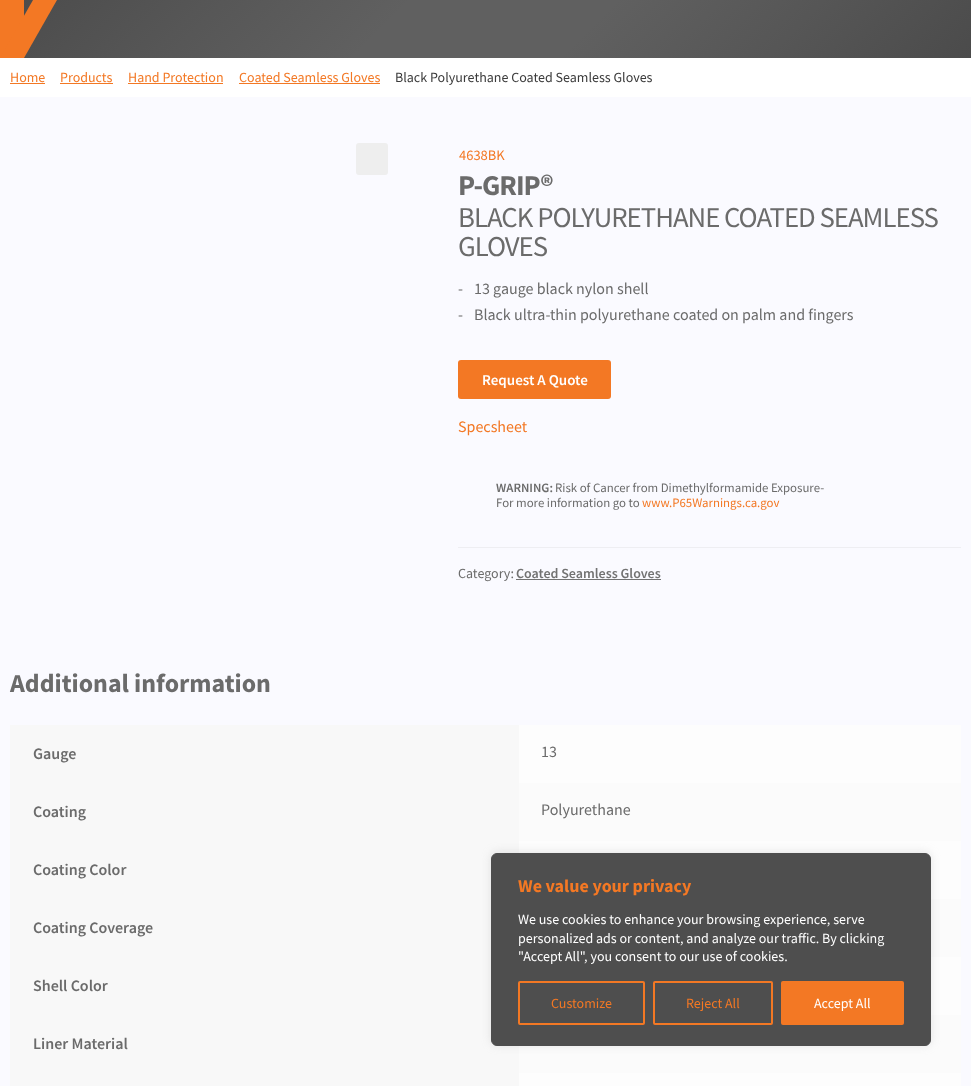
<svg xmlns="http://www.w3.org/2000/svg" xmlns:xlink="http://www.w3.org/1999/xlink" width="971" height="1086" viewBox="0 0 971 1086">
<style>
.cls-1{font:14px Source Sans Pro;fill:#f37824}
.cls-2{font:14px Source Sans Pro;fill:#3b3b3b}
.cls-3{font:14.5px Source Sans Pro;fill:#f37824}
.cls-4{font:bold 28.75px Source Sans Pro;letter-spacing:-1px;fill:#6b6b6b}
.cls-5{font:28.75px Source Sans Pro;letter-spacing:-1px;fill:#6b6b6b}
.cls-6{font:16px Source Sans Pro;fill:#6b6b6b}
.cls-7{font:600 15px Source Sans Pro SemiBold;fill:#ffffff}
.cls-8{font:16px Source Sans Pro;fill:#f37824}
.cls-9{font:600 12.8px Source Sans Pro SemiBold;fill:#6b6b6b}
.cls-10{font:12.8px Source Sans Pro;fill:#6b6b6b}
.cls-11{font:12.8px Source Sans Pro;fill:#f37824}
.cls-12{font:14px Source Sans Pro;fill:#6b6b6b}
.cls-13{font:600 14px Source Sans Pro SemiBold;fill:#727272}
.cls-14{font:bold 25.9px Source Sans Pro;fill:#6b6b6b}
.cls-15{font:600 16px Source Sans Pro SemiBold;fill:#6b6b6b}
.cls-16{font:bold 18px Source Sans Pro;fill:#f37824}
.cls-17{font:14px Source Sans Pro;fill:#ffffff}
</style>
<defs>
<linearGradient id="g1" gradientUnits="userSpaceOnUse" x1="228" y1="-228" x2="743" y2="286"><stop offset="0" stop-color="#4b4b4b"/><stop offset="0.2" stop-color="#565656"/><stop offset="0.4" stop-color="#606060"/><stop offset="0.6" stop-color="#606060"/><stop offset="0.8" stop-color="#565656"/><stop offset="1" stop-color="#4b4b4b"/></linearGradient>
</defs>
<rect width="100%" height="100%" fill="#fafaff"/>
<rect fill="url(#g1)" x="24" y="0" width="947" height="58"/>
<rect fill="#f37824" x="0" y="0" width="24" height="58"/>
<path fill="#f37824" d="M33 0H57L24 58H0Z"/>
<rect fill="#ffffff" x="0" y="58" width="971" height="39"/>
<rect fill="#f37824" x="10" y="83" width="35" height="1"/>
<rect fill="#f37824" x="60" y="83" width="53" height="1"/>
<rect fill="#f37824" x="128" y="83" width="95" height="1"/>
<rect fill="#f37824" x="239" y="83" width="141" height="1"/>
<rect fill="#eeeeee" x="356" y="143" width="32" height="32" rx="3"/>
<rect fill="#f37824" x="458" y="360" width="153" height="39" rx="3"/>
<rect fill="#eeeef2" x="458" y="547" width="503" height="1"/>
<rect fill="#727272" x="516" y="579" width="145" height="1"/>
<rect fill="#f8f8f8" x="10" y="725" width="509" height="174"/>
<rect fill="#fdfdfd" x="519" y="725" width="442" height="58"/>
<rect fill="#fbfbfb" x="519" y="783" width="442" height="58"/>
<rect fill="#fdfdfd" x="519" y="841" width="442" height="58"/>
<rect fill="#f8f8f8" x="10" y="899" width="481" height="116"/>
<rect fill="#fbfbfb" x="931" y="899" width="30" height="58"/>
<rect fill="#fdfdfd" x="931" y="957" width="30" height="58"/>
<rect fill="#f8f8f8" x="10" y="1015" width="509" height="71"/>
<rect fill="#fbfbfb" x="519" y="1015" width="442" height="58"/>
<rect fill="#fdfdfd" x="519" y="1073" width="442" height="13"/>
<rect fill="#acabab" fill-opacity="0.3" filter="blur(5px)" x="491" y="852" width="440" height="193" rx="6"/>
<rect fill="#4e4e4e" stroke="#4e4e4e" x="491.5" y="853.5" width="439" height="192" rx="5.5"/>
<rect fill="none" stroke="#f37824" stroke-width="2" x="519" y="982" width="125" height="42" rx="1"/>
<rect fill="none" stroke="#f37824" stroke-width="2" x="654" y="982" width="118" height="42" rx="1"/>
<rect fill="#f37824" stroke="#f37824" stroke-width="2" x="782" y="982" width="121" height="42" rx="1"/>
<text class="cls-1" x="10" y="82">Home</text>
<text class="cls-1" x="60" y="82">Products</text>
<text class="cls-1" x="128" y="82">Hand Protection</text>
<text class="cls-1" x="239" y="82">Coated Seamless Gloves</text>
<text class="cls-2" x="395" y="82">Black Polyurethane Coated Seamless Gloves</text>
<text class="cls-3" x="459" y="160">4638BK</text>
<text class="cls-4" x="458" y="195">P-GRIP®</text>
<text class="cls-5"><tspan x="458" y="227">BLACK POLYURETHANE COATED SEAMLESS</tspan><tspan x="458" y="256">GLOVES</tspan></text>
<text class="cls-6" x="458" y="294">-</text>
<text class="cls-6" x="474" y="294">13 gauge black nylon shell</text>
<text class="cls-6" x="458" y="320">-</text>
<text class="cls-6" x="474" y="320">Black ultra-thin polyurethane coated on palm and fingers</text>
<text class="cls-7" x="482" y="385">Request A Quote</text>
<text class="cls-8" x="458" y="432">Specsheet</text>
<text class="cls-9" x="496" y="492">WARNING:</text>
<text class="cls-10" x="555" y="492">Risk of Cancer from Dimethylformamide Exposure-</text>
<text class="cls-10" x="496" y="507">For more information go to</text>
<text class="cls-11" x="642" y="507">www.P65Warnings.ca.gov</text>
<text class="cls-12" x="458" y="578">Category:</text>
<text class="cls-13" x="516" y="578">Coated Seamless Gloves</text>
<text class="cls-14" x="10" y="692">Additional information</text>
<text class="cls-15" x="33" y="759">Gauge</text>
<text class="cls-6" x="541" y="757">13</text>
<text class="cls-15" x="33" y="817">Coating</text>
<text class="cls-6" x="541" y="815">Polyurethane</text>
<text class="cls-15" x="33" y="875">Coating Color</text>
<text class="cls-15" x="33" y="933">Coating Coverage</text>
<text class="cls-15" x="33" y="991">Shell Color</text>
<text class="cls-15" x="33" y="1049">Liner Material</text>
<text class="cls-16" x="518" y="892">We value your privacy</text>
<text class="cls-17"><tspan x="518" y="924">We use cookies to enhance your browsing experience, serve</tspan><tspan x="518" y="943">personalized ads or content, and analyze our traffic. By clicking</tspan><tspan x="518" y="961">"Accept All", you consent to our use of cookies.</tspan></text>
<text class="cls-1" x="551" y="1008">Customize</text>
<text class="cls-1" x="686" y="1008">Reject All</text>
<text class="cls-17" x="814" y="1008">Accept All</text>
</svg>
